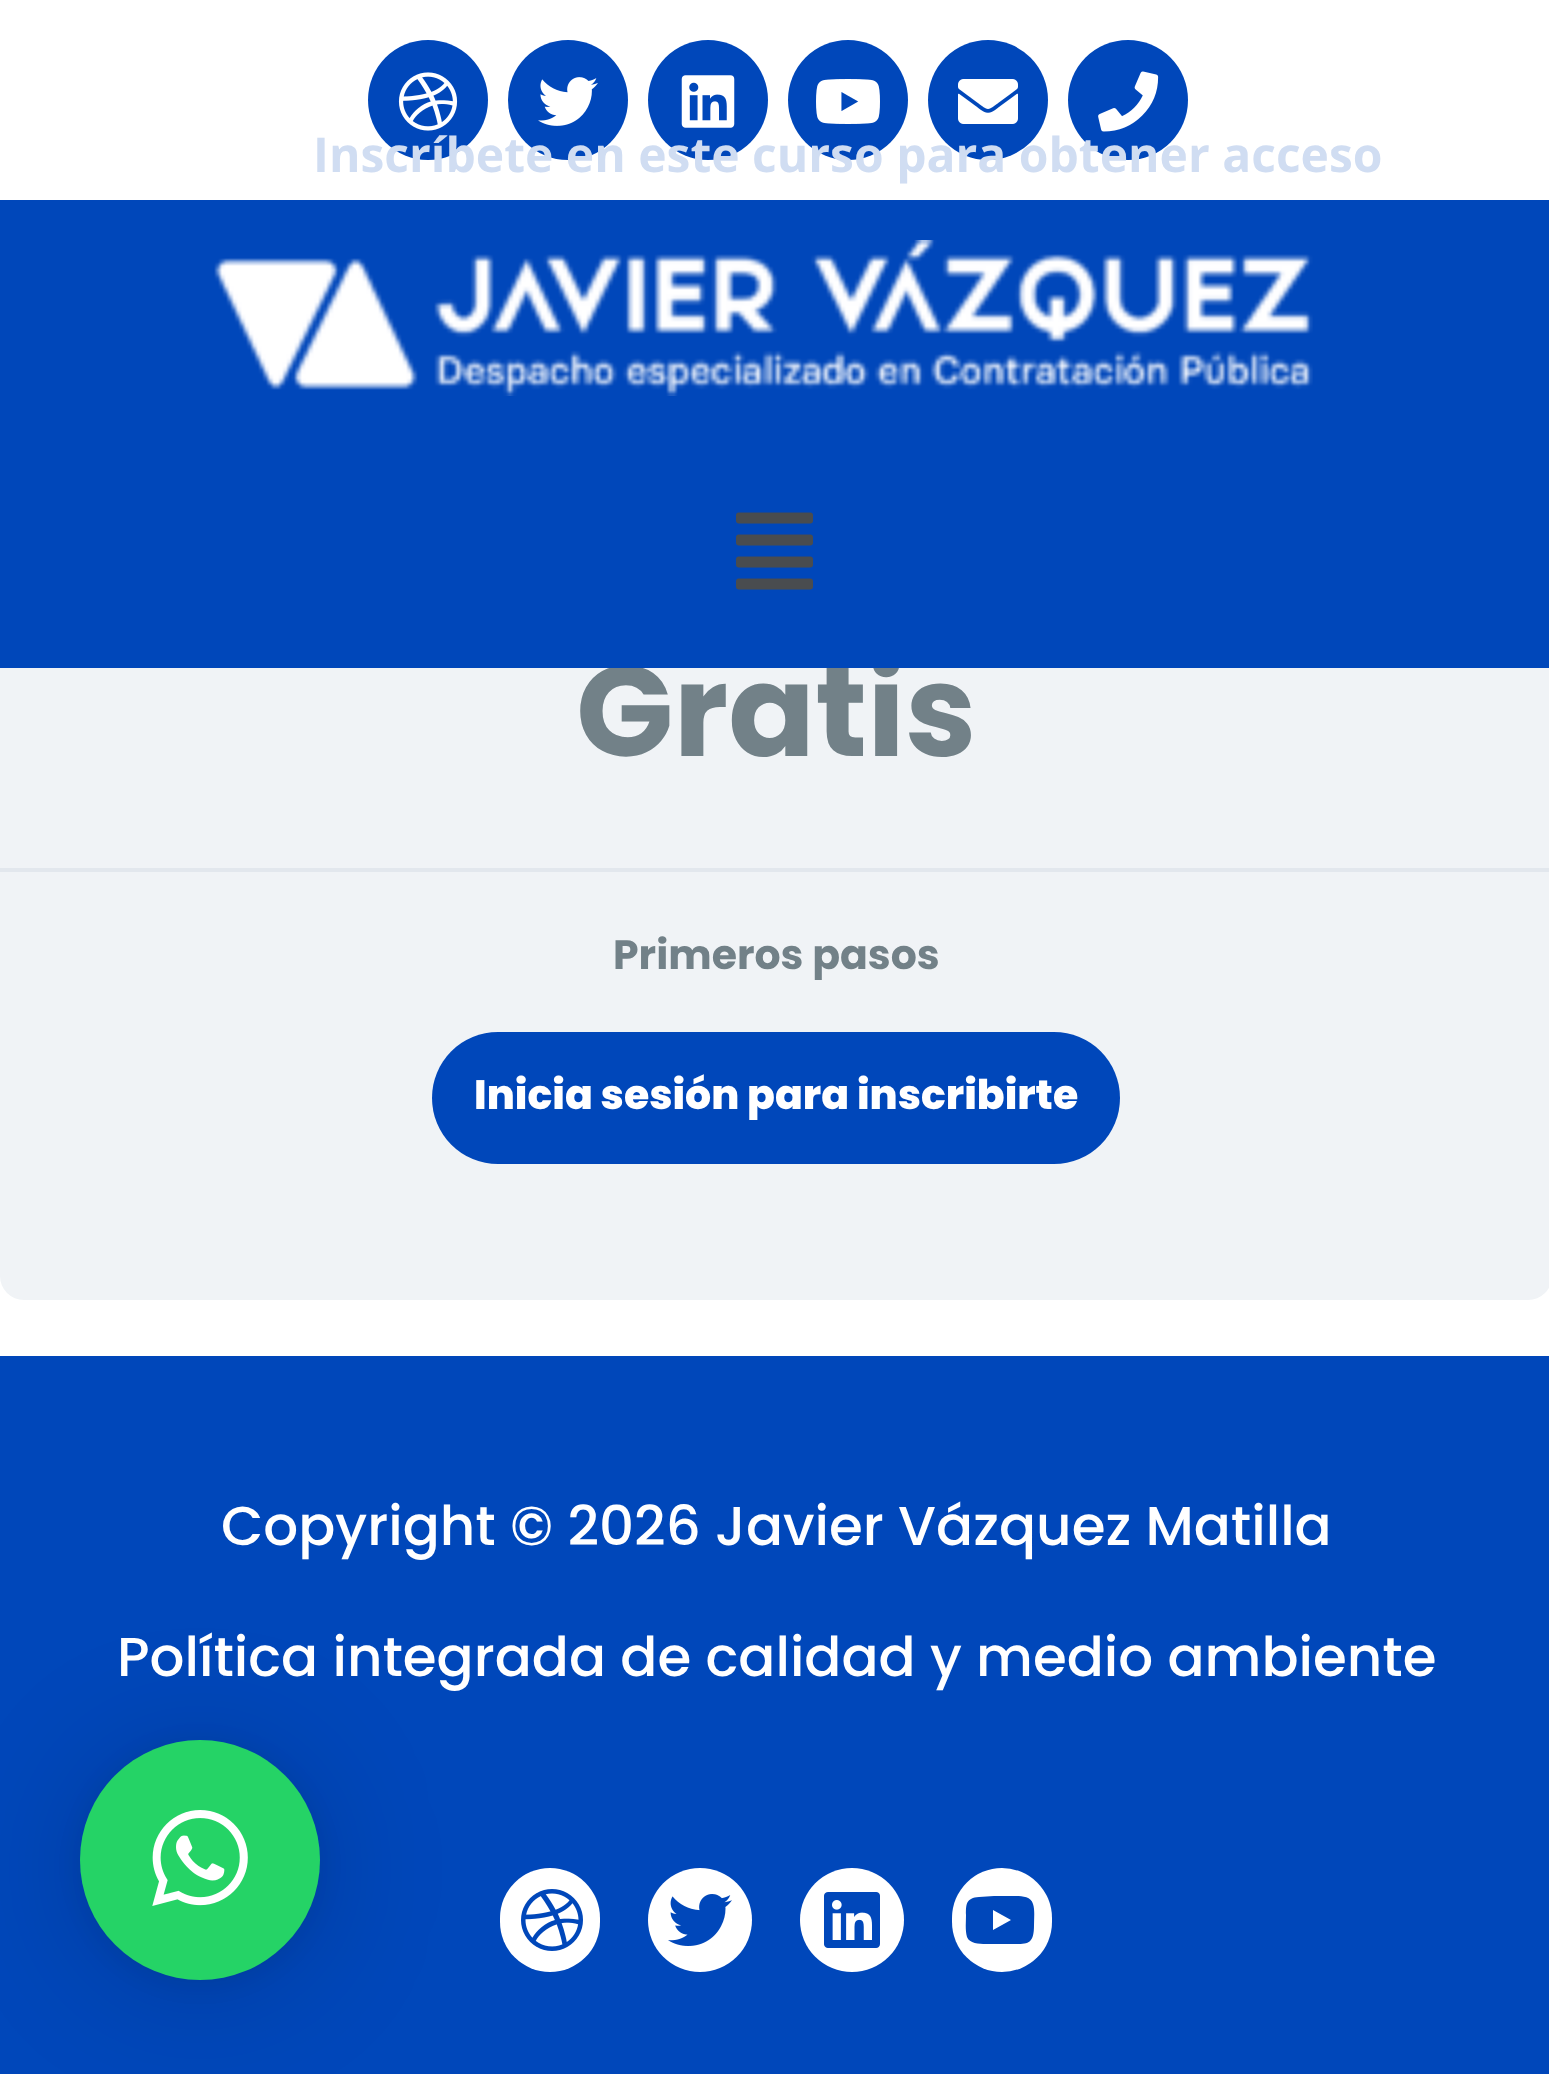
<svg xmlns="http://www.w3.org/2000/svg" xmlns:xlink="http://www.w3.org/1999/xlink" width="1549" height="2074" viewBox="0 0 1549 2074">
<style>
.cls-1{font:bold 48px Open Sans;fill:#d0ddf2}
.cls-2{font:bold 128px Poppins;fill:#728188}
.cls-3{font:bold 41px Poppins;fill:#728188}
.cls-4{font:800 41px Poppins;fill:#ffffff}
.cls-5{font:500 54.75px Poppins;fill:#ffffff}
</style>
<rect width="100%" height="100%" fill="#ffffff"/>
<rect fill="#f0f3f6" x="0" y="56" width="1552" height="1244" rx="24"/>
<rect fill="#ffffff" x="0" y="56" width="1549" height="144"/>
<circle fill="#0047ba" cx="428" cy="100" r="60"/>
<image xlink:href="image0.png" x="398" y="72" width="60" height="59"/>
<circle fill="#0047ba" cx="568" cy="100" r="60"/>
<image xlink:href="image1.png" x="538" y="77" width="60" height="49"/>
<circle fill="#0047ba" cx="708" cy="100" r="60"/>
<image xlink:href="image2.png" x="681" y="75" width="54" height="53"/>
<circle fill="#0047ba" cx="848" cy="100" r="60"/>
<image xlink:href="image3.png" x="816" y="79" width="64" height="45"/>
<circle fill="#0047ba" cx="988" cy="100" r="60"/>
<image xlink:href="image4.png" x="958" y="79" width="60" height="45"/>
<circle fill="#0047ba" cx="1128" cy="100" r="60"/>
<image xlink:href="image5.png" x="1098" y="71" width="61" height="61"/>
<rect fill="#e2e7ed" x="0" y="868" width="1549" height="4"/>
<rect fill="#0047ba" x="432" y="1032" width="688" height="132" rx="66"/>
<rect fill="#0047ba" x="0" y="1356" width="1549" height="718"/>
<rect fill="#ffffff" x="500" y="1868" width="100" height="104" rx="50"/>
<image xlink:href="image8.png" x="521" y="1889" width="62" height="62"/>
<circle fill="#ffffff" cx="700" cy="1920" r="52"/>
<image xlink:href="image9.png" x="668" y="1894" width="64" height="52"/>
<circle fill="#ffffff" cx="852" cy="1920" r="52"/>
<image xlink:href="image10.png" x="824" y="1892" width="56" height="56"/>
<rect fill="#ffffff" x="952" y="1868" width="100" height="104" rx="50"/>
<path fill="#0047ba" d="M1033 1904C1035 1910 1034 1918 1034 1925C1034 1946 1027 1944 1008 1944H991C984 1944 970 1945 967 1937C965 1930 966 1922 966 1915C966 1904 966 1898 979 1897L994 1896H1014C1021 1896 1031 1896 1033 1904ZM993 1930L1011 1920L993 1910Z"/>
<rect fill="#000000" fill-opacity="0.16" filter="blur(64px)" x="80" y="1748" width="240" height="240" rx="120"/>
<rect fill="#000000" fill-opacity="0.06" filter="blur(12px)" x="80" y="1744" width="240" height="240" rx="120"/>
<circle fill="#25d366" cx="200" cy="1860" r="120"/>
<image xlink:href="image11.png" x="152" y="1810" width="96" height="96"/>
<text class="cls-1" x="313" y="172">Inscríbete en este curso para obtener acceso</text>
<text class="cls-2" x="576" y="756">Gratis</text>
<rect fill="#0047ba" x="0" y="200" width="1549" height="468"/>
<image xlink:href="image7.png" x="736" y="512" width="77" height="78"/>
<image xlink:href="image6.png" x="214" y="240" width="1099" height="156"/>
<text class="cls-3" x="613" y="969">Primeros pasos</text>
<text class="cls-4" x="474" y="1109">Inicia sesión para inscribirte</text>
<text class="cls-5" x="221" y="1545">Copyright © 2026 Javier Vázquez Matilla</text>
<text class="cls-5" x="117" y="1676">Política integrada de calidad y medio ambiente</text>
</svg>
